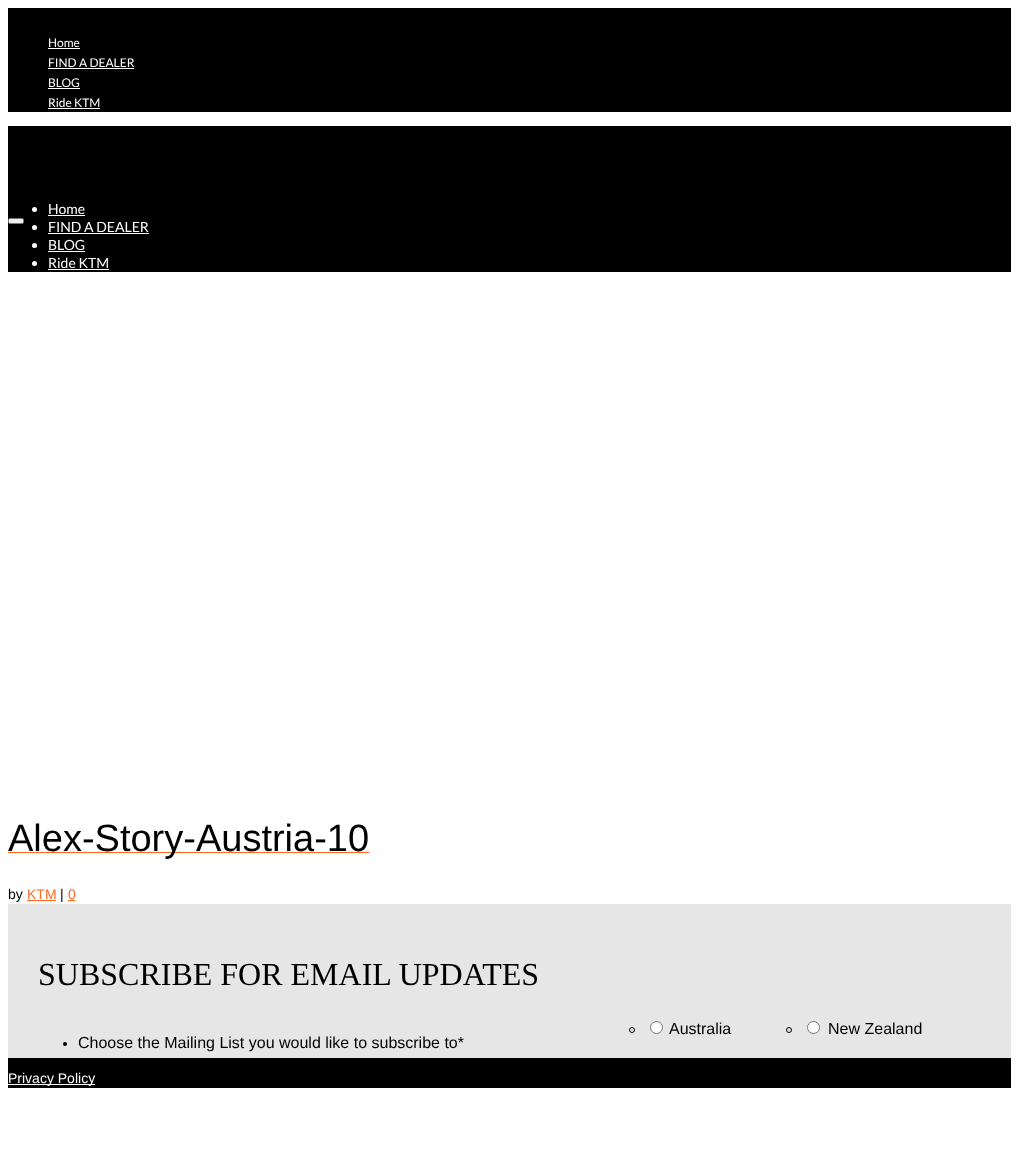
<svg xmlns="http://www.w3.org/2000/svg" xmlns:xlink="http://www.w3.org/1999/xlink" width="1019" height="1160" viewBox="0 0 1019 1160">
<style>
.cls-1{font:12px Lato;fill:#ffffff}
.cls-2{font:14px Lato;fill:#ffffff}
.cls-3{font:38px Liberation Sans;fill:#000000}
.cls-4{font:14px Liberation Sans;fill:#000000}
.cls-5{font:14px Liberation Sans;fill:#fd6721}
.cls-6{font:32px Liberation Serif;fill:#000000}
.cls-7{font:16px Liberation Sans;fill:#000000}
.cls-8{font:14px Liberation Sans;fill:#ffffff}
</style>
<rect width="100%" height="100%" fill="#ffffff"/>
<rect fill="#000000" x="8" y="8" width="1003" height="104"/>
<rect fill="#ffffff" x="48" y="48" width="32" height="1"/>
<rect fill="#ffffff" x="48" y="68" width="86" height="1"/>
<rect fill="#ffffff" x="48" y="88" width="32" height="1"/>
<rect fill="#ffffff" x="48" y="108" width="52" height="1"/>
<rect fill="#000000" x="8" y="126" width="1003" height="146"/>
<rect fill="#efefef" stroke="#767676" x="8.5" y="218.5" width="15" height="5" rx="1.5"/>
<circle fill="#ffffff" cx="34.5" cy="209.5" r="2.5"/>
<rect fill="#ffffff" x="48" y="215" width="37" height="1"/>
<circle fill="#ffffff" cx="34.5" cy="227.5" r="2.5"/>
<rect fill="#ffffff" x="48" y="233" width="101" height="1"/>
<circle fill="#ffffff" cx="34.5" cy="245.5" r="2.5"/>
<rect fill="#ffffff" x="48" y="251" width="37" height="1"/>
<circle fill="#ffffff" cx="34.5" cy="263.5" r="2.5"/>
<rect fill="#ffffff" x="48" y="269" width="61" height="1"/>
<rect fill="#fd6721" x="8" y="852" width="361" height="1"/>
<rect fill="#fd6721" x="27" y="900" width="29" height="1"/>
<rect fill="#fd6721" x="68" y="900" width="7" height="1"/>
<rect fill="#e6e6e6" x="8" y="904" width="1003" height="154"/>
<circle fill="none" stroke="#000000" cx="632" cy="1030" r="2.5"/>
<circle fill="#ffffff" stroke="#767676" cx="656.5" cy="1027.5" r="6"/>
<circle fill="none" stroke="#000000" cx="789" cy="1030" r="2.5"/>
<circle fill="#ffffff" stroke="#767676" cx="813.5" cy="1027.5" r="6"/>
<circle fill="#000000" cx="65" cy="1044" r="2"/>
<rect fill="#000000" x="8" y="1058" width="1003" height="30"/>
<rect fill="#ffffff" x="8" y="1084" width="87" height="1"/>
<text class="cls-1"><tspan x="48" y="47">Home</tspan><tspan x="48" y="67">FIND A DEALER</tspan><tspan x="48" y="87">BLOG</tspan><tspan x="48" y="107">Ride KTM</tspan></text>
<text class="cls-2"><tspan x="48" y="214">Home</tspan><tspan x="48" y="232">FIND A DEALER</tspan><tspan x="48" y="250">BLOG</tspan><tspan x="48" y="268">Ride KTM</tspan></text>
<text class="cls-3" x="8" y="851">Alex-Story-Austria-10</text>
<text class="cls-4" x="8" y="899">by</text>
<text class="cls-5" x="27" y="899">KTM</text>
<text class="cls-4" x="60" y="899">|</text>
<text class="cls-5" x="68" y="899">0</text>
<text class="cls-6" x="38" y="985">SUBSCRIBE FOR EMAIL UPDATES</text>
<text class="cls-7" x="669" y="1034">Australia</text>
<text class="cls-7" x="828" y="1034">New Zealand</text>
<text class="cls-7" x="78" y="1048">Choose the Mailing List you would like to subscribe to*</text>
<text class="cls-8" x="8" y="1083">Privacy Policy</text>
</svg>
